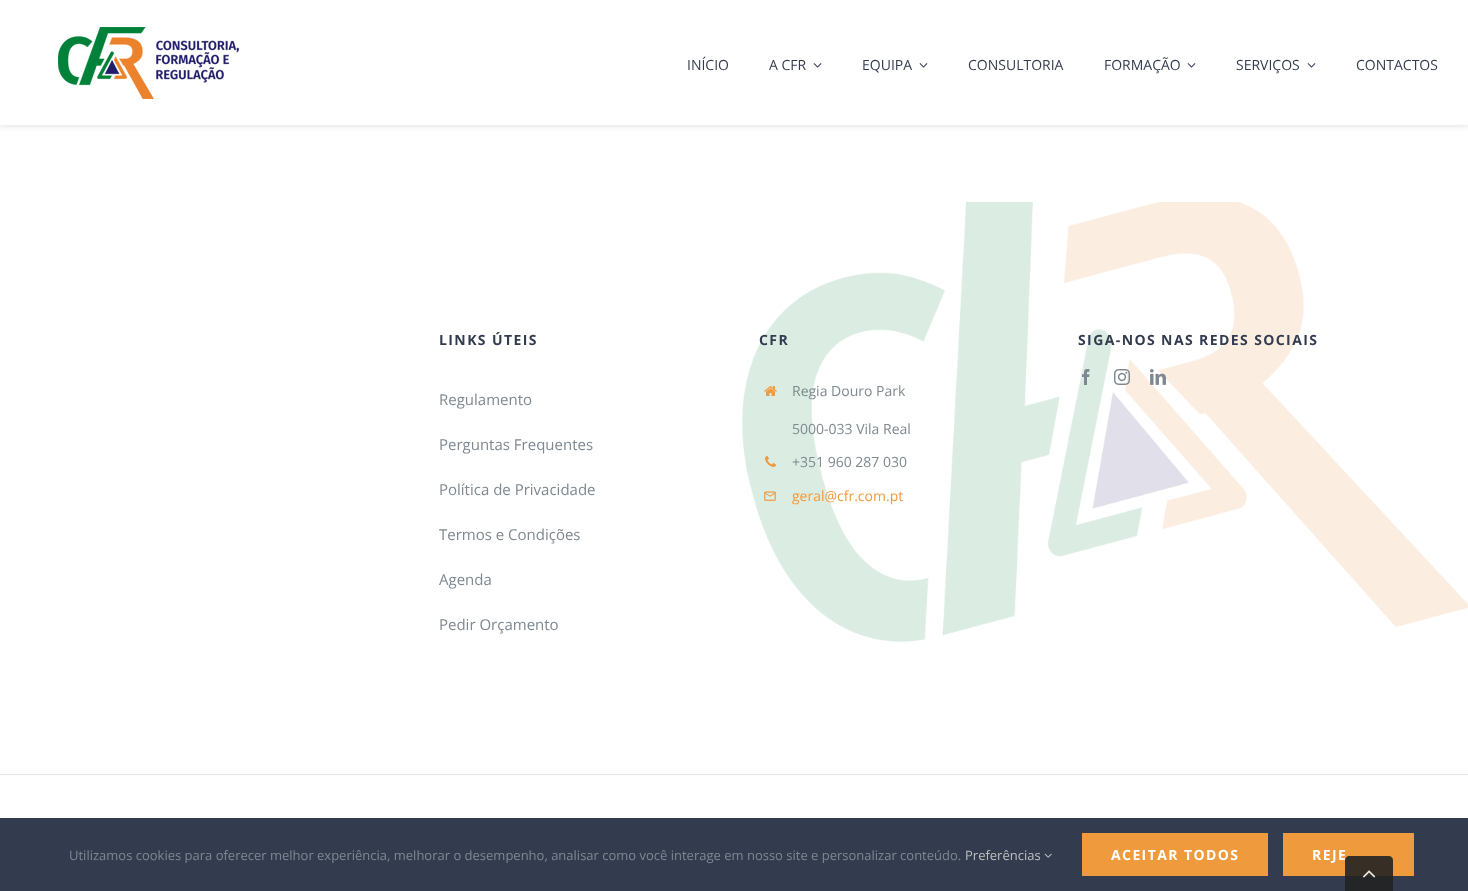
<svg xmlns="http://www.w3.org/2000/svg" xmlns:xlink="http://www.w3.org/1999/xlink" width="1468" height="891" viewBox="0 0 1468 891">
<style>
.cls-1{font:14px Open Sans;fill:#333c4e}
.cls-2{font:bold 14px Open Sans;letter-spacing:1.4px;fill:#333c4e}
.cls-3{font:15px Open Sans;fill:#7e8890}
.cls-4{font:14px Open Sans;fill:#7e8890}
.cls-5{font:14px Open Sans;fill:#f09a3e}
.cls-6{font:13px Open Sans;fill:#7e8890}
.cls-7{font:13px Open Sans;fill:#bfbfbf}
.cls-8{font:bold 14px Open Sans;letter-spacing:1.4px;fill:#ffffff}
</style>
<rect width="100%" height="100%" fill="#ffffff"/>
<rect fill="#212121" fill-opacity="0.1" filter="blur(2.5px)" x="0" y="2" width="1468" height="125"/>
<rect fill="#ffffff" x="0" y="0" width="1468" height="125"/>
<image xlink:href="image0.png" x="58" y="27" width="181" height="72"/>
<image xlink:href="image1.png" x="813" y="63" width="9" height="5"/>
<image xlink:href="image1.png" x="919" y="63" width="9" height="5"/>
<image xlink:href="image1.png" x="1187" y="63" width="9" height="5"/>
<image xlink:href="image1.png" x="1307" y="63" width="9" height="5"/>
<image xlink:href="image2.png" x="742" y="202" width="726" height="440"/>
<image xlink:href="image3.png" x="764" y="386" width="13" height="10"/>
<image xlink:href="image4.png" x="765" y="456" width="11" height="11"/>
<image xlink:href="image5.png" x="764" y="491" width="12" height="10"/>
<image xlink:href="image6.png" x="1082" y="369" width="8" height="16"/>
<image xlink:href="image7.png" x="1114" y="369" width="16" height="16"/>
<image xlink:href="image8.png" x="1150" y="369" width="16" height="16"/>
<rect fill="#e7e4e2" x="0" y="774" width="1468" height="1"/>
<rect fill="#333c4e" x="0" y="818" width="1468" height="73"/>
<image xlink:href="image9.png" x="1044" y="853" width="8" height="5"/>
<rect fill="#f09a3e" x="1082" y="833" width="186" height="43"/>
<rect fill="#f09a3e" x="1283" y="833" width="131" height="43"/>
<text class="cls-1" x="687" y="70">INÍCIO</text>
<text class="cls-1" x="769" y="70">A CFR</text>
<text class="cls-1" x="862" y="70">EQUIPA</text>
<text class="cls-1" x="968" y="70">CONSULTORIA</text>
<text class="cls-1" x="1104" y="70">FORMAÇÃO</text>
<text class="cls-1" x="1236" y="70">SERVIÇOS</text>
<text class="cls-1" x="1356" y="70">CONTACTOS</text>
<text class="cls-2" x="439" y="345">LINKS ÚTEIS</text>
<text class="cls-3" x="439" y="405">Regulamento</text>
<text class="cls-3" x="439" y="450">Perguntas Frequentes</text>
<text class="cls-3" x="439" y="495">Política de Privacidade</text>
<text class="cls-3" x="439" y="540">Termos e Condições</text>
<text class="cls-3" x="439" y="585">Agenda</text>
<text class="cls-3" x="439" y="630">Pedir Orçamento</text>
<text class="cls-2" x="759" y="345">CFR</text>
<text class="cls-4" x="792" y="396">Regia Douro Park</text>
<text class="cls-4" x="792" y="434">5000-033 Vila Real</text>
<text class="cls-4" x="792" y="467">+351 960 287 030</text>
<text class="cls-5" x="792" y="501">geral@cfr.com.pt</text>
<text class="cls-2" x="1078" y="345">SIGA-NOS NAS REDES SOCIAIS</text>
<text class="cls-6" x="69" y="860">Utilizamos cookies para oferecer melhor experiência, melhorar o desempenho, analisar como você interage em nosso site e personalizar conteúdo.</text>
<text class="cls-7" x="965" y="860">Preferências</text>
<text class="cls-8" x="1111" y="860">ACEITAR TODOS</text>
<text class="cls-8" x="1312" y="860">REJE</text>
<path fill="#222222" fill-opacity="0.9" d="M1349 856H1389C1391 856 1393 858 1393 860V891H1345V860C1345 858 1347 856 1349 856Z"/>
<image xlink:href="image10.png" x="1363" y="870" width="13" height="8"/>
</svg>
